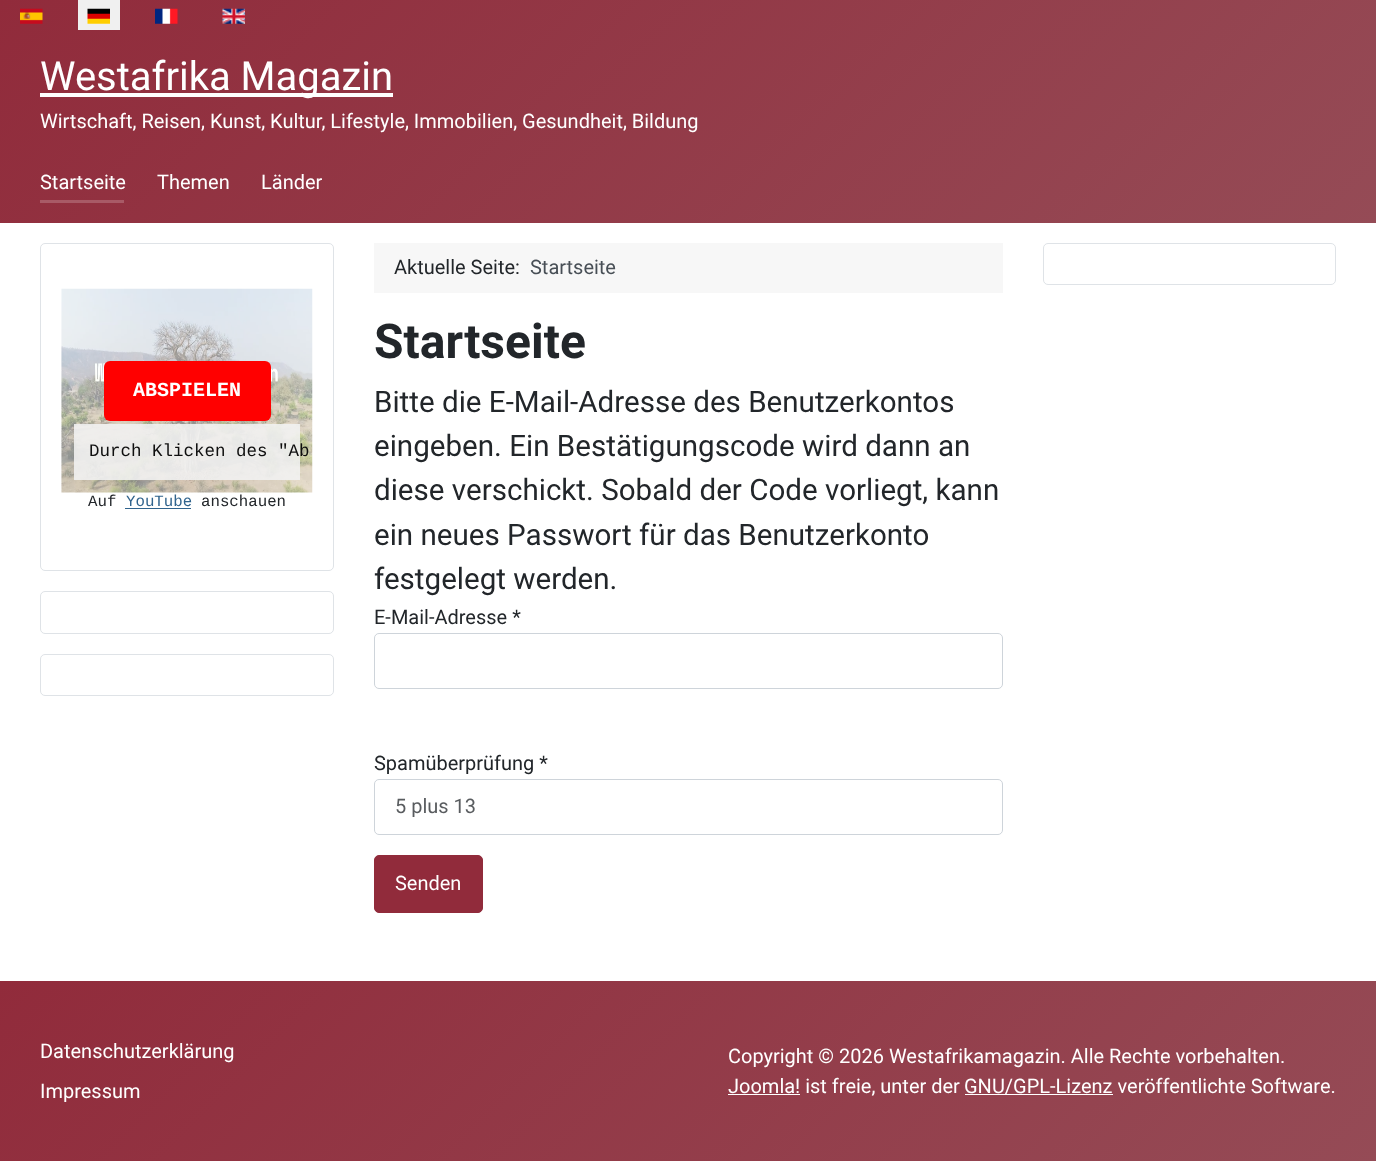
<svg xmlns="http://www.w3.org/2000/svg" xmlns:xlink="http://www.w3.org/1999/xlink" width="1376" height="1161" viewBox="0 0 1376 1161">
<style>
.cls-1{font:40px Roboto;fill:#ffffff}
.cls-2{font:20px Roboto;fill:#ffffff}
.cls-3{font:bold 20px Liberation Mono;fill:#ffffff}
.cls-4{font:17.5px Liberation Mono;fill:#0f0f0f}
.cls-5{font:15.75px Liberation Mono;fill:#22262a}
.cls-6{font:15.75px Liberation Mono;fill:#30638d}
.cls-7{font:20px Roboto;fill:#22262a}
.cls-8{font:20px Roboto;fill:#484f56}
.cls-9{font:bold 48px Roboto;fill:#22262a}
.cls-10{font:29.6px Roboto;fill:#22262a}
.cls-11{font:20px Roboto;fill:#595c5f}
</style>
<defs>
<linearGradient id="g1" gradientUnits="userSpaceOnUse" x1="288" y1="-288" x2="1088" y2="511"><stop offset="0" stop-color="#912b3b"/><stop offset="1" stop-color="#954b56"/></linearGradient>
<linearGradient id="g2" gradientUnits="userSpaceOnUse" x1="299" y1="682" x2="1077" y2="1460"><stop offset="0" stop-color="#912b3b"/><stop offset="1" stop-color="#954b56"/></linearGradient>
</defs>
<rect width="100%" height="100%" fill="#ffffff"/>
<rect fill="url(#g1)" x="0" y="0" width="1376" height="223"/>
<image xlink:href="image0.png" x="20" y="8" width="23" height="16"/>
<rect fill="#f0f0f0" x="78" y="0" width="42" height="30"/>
<image xlink:href="image1.png" x="87" y="8" width="23" height="16"/>
<image xlink:href="image2.png" x="155" y="8" width="23" height="16"/>
<image xlink:href="image3.png" x="222" y="8" width="23" height="16"/>
<rect fill="#ffffff" x="40" y="93" width="353" height="4"/>
<rect fill="#a85a66" x="40" y="200" width="84" height="3"/>
<rect fill="none" stroke="#dfe3e7" x="40.5" y="243.5" width="293" height="327" rx="4.5"/>
<image xlink:href="image4.png" x="61" y="288" width="252" height="205"/>
<rect fill="#ff0000" x="104" y="361" width="167" height="60" rx="6"/>
<rect fill="#f2f1f1" fill-opacity="0.89" x="74" y="424" width="226" height="56"/>
<rect fill="#30638d" x="125" y="508" width="66" height="1"/>
<rect fill="none" stroke="#dfe3e7" x="40.5" y="591.5" width="293" height="42" rx="4.5"/>
<rect fill="none" stroke="#dfe3e7" x="40.5" y="654.5" width="293" height="41" rx="4.5"/>
<rect fill="#f7f7f7" x="374" y="243" width="629" height="50"/>
<rect fill="none" stroke="#ced4da" x="374.5" y="633.5" width="628" height="55" rx="4.5"/>
<rect fill="none" stroke="#ced4da" x="374.5" y="779.5" width="628" height="55" rx="4.5"/>
<rect fill="#912b3b" stroke="#912b3b" x="374.5" y="855.5" width="108" height="57" rx="4.5"/>
<rect fill="none" stroke="#dfe3e7" x="1043.5" y="243.5" width="292" height="41" rx="4.5"/>
<rect fill="url(#g2)" x="0" y="981" width="1376" height="180"/>
<rect fill="#ffffff" x="728" y="1094" width="72" height="1"/>
<rect fill="#ffffff" x="965" y="1094" width="148" height="1"/>
<text class="cls-1" x="40" y="90">Westafrika Magazin</text>
<text class="cls-2" x="40" y="128">Wirtschaft, Reisen, Kunst, Kultur, Lifestyle, Immobilien, Gesundheit, Bildung</text>
<text class="cls-2" x="40" y="189">Startseite</text>
<text class="cls-2" x="157" y="189">Themen</text>
<text class="cls-2" x="261" y="189">Länder</text>
<text class="cls-3" x="133" y="396">ABSPIELEN</text>
<text class="cls-4" x="89" y="456">Durch Klicken des "Ab</text>
<text class="cls-5" x="88" y="506">Auf</text>
<text class="cls-6" x="126" y="506">YouTube</text>
<text class="cls-5" x="201" y="506">anschauen</text>
<text class="cls-7" x="394" y="274">Aktuelle Seite:</text>
<text class="cls-8" x="530" y="274">Startseite</text>
<text class="cls-9" x="374" y="358">Startseite</text>
<text class="cls-10"><tspan x="374" y="412">Bitte die E-Mail-Adresse des Benutzerkontos</tspan><tspan x="374" y="456">eingeben. Ein Bestätigungscode wird dann an</tspan><tspan x="374" y="500">diese verschickt. Sobald der Code vorliegt, kann</tspan><tspan x="374" y="545">ein neues Passwort für das Benutzerkonto</tspan><tspan x="374" y="589">festgelegt werden.</tspan></text>
<text class="cls-7" x="374" y="624">E-Mail-Adresse *</text>
<text class="cls-7" x="374" y="770">Spamüberprüfung *</text>
<text class="cls-11" x="395" y="813">5 plus 13</text>
<text class="cls-2" x="395" y="890">Senden</text>
<text class="cls-2" x="40" y="1058">Datenschutzerklärung</text>
<text class="cls-2" x="40" y="1098">Impressum</text>
<text class="cls-2"><tspan x="728" y="1063">Copyright © 2026 Westafrikamagazin. Alle Rechte vorbehalten.</tspan><tspan x="728" y="1093">Joomla! ist freie, unter der</tspan></text>
<text class="cls-2" x="964" y="1093">GNU/GPL-Lizenz veröffentlichte Software.</text>
</svg>
